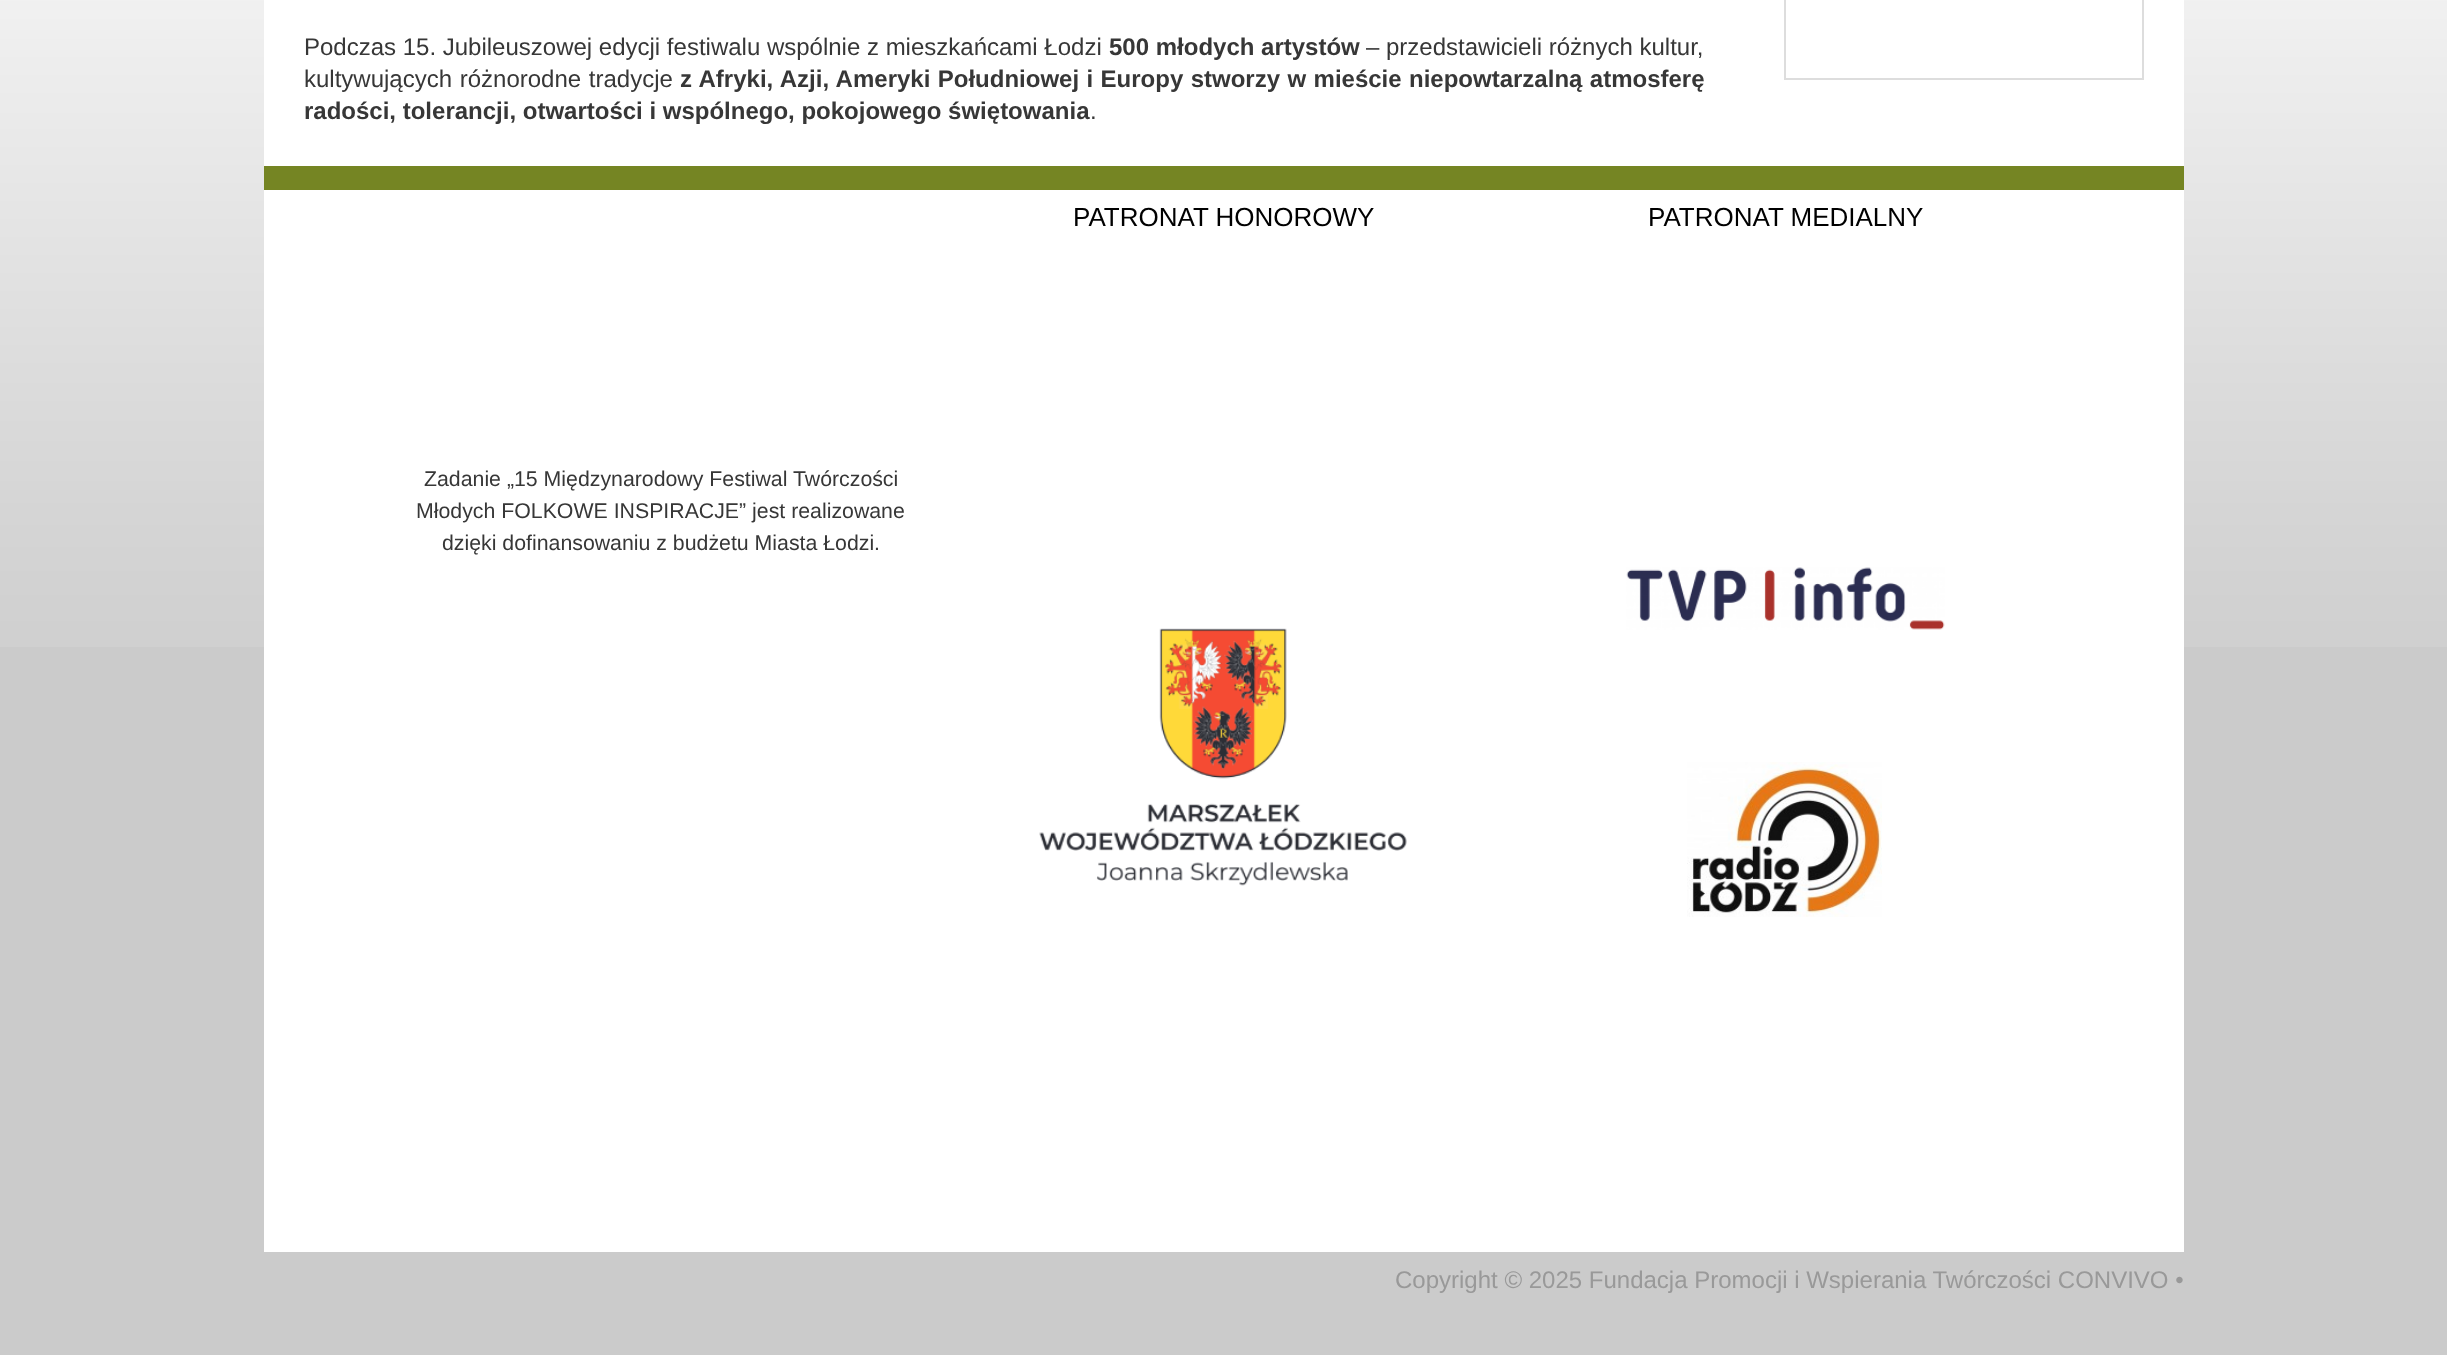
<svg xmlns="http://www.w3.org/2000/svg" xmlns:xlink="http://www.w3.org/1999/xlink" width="2447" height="1355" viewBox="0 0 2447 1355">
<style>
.cls-1{font:24px Liberation Sans;fill:#373737}
.cls-2{font:bold 24px Liberation Sans;fill:#373737}
.cls-3{font:26px Liberation Sans;fill:#000000}
.cls-4{font:21.3px Liberation Sans;fill:#373737}
.cls-5{font:24px Liberation Sans;fill:#999999}
</style>
<rect width="100%" height="100%" fill="#cbcbcb"/>
<image xlink:href="image0.png" x="0" y="0" width="2447" height="647"/>
<rect fill="#ffffff" x="264" y="0" width="1920" height="1252"/>
<rect fill="none" stroke="#dddddd" stroke-width="2" x="1785" y="-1" width="358" height="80"/>
<rect fill="#758523" x="264" y="166" width="1920" height="24"/>
<image xlink:href="image1.png" x="1039" y="628" width="368" height="258"/>
<image xlink:href="image2.png" x="1626" y="567" width="319" height="63"/>
<image xlink:href="image3.png" x="1687" y="762" width="195" height="155"/>
<text class="cls-1" x="304" y="55">Podczas 15. Jubileuszowej edycji festiwalu wspólnie z mieszkańcami Łodzi</text>
<text class="cls-2" x="1109" y="55">500 młodych artystów</text>
<text class="cls-1" x="1366" y="55">– przedstawicieli różnych kultur,</text>
<text class="cls-1" x="304" y="87" word-spacing="1">kultywujących różnorodne tradycje</text>
<text class="cls-2" x="680" y="87" word-spacing="0.75">z Afryki, Azji, Ameryki Południowej i Europy stworzy w mieście niepowtarzalną atmosferę</text>
<text class="cls-2" x="304" y="119">radości, tolerancji, otwartości i wspólnego, pokojowego świętowania</text>
<text class="cls-1" x="1090" y="119">.</text>
<text class="cls-3" x="1073" y="226">PATRONAT HONOROWY</text>
<text class="cls-3" x="1648" y="226">PATRONAT MEDIALNY</text>
<text class="cls-4" x="424" y="486">Zadanie „15 Międzynarodowy Festiwal Twórczości</text>
<text class="cls-4" x="416" y="518">Młodych FOLKOWE INSPIRACJE” jest realizowane</text>
<text class="cls-4" x="442" y="550">dzięki dofinansowaniu z budżetu Miasta Łodzi.</text>
<text class="cls-5" x="1395" y="1288">Copyright © 2025 Fundacja Promocji i Wspierania Twórczości CONVIVO •</text>
</svg>
